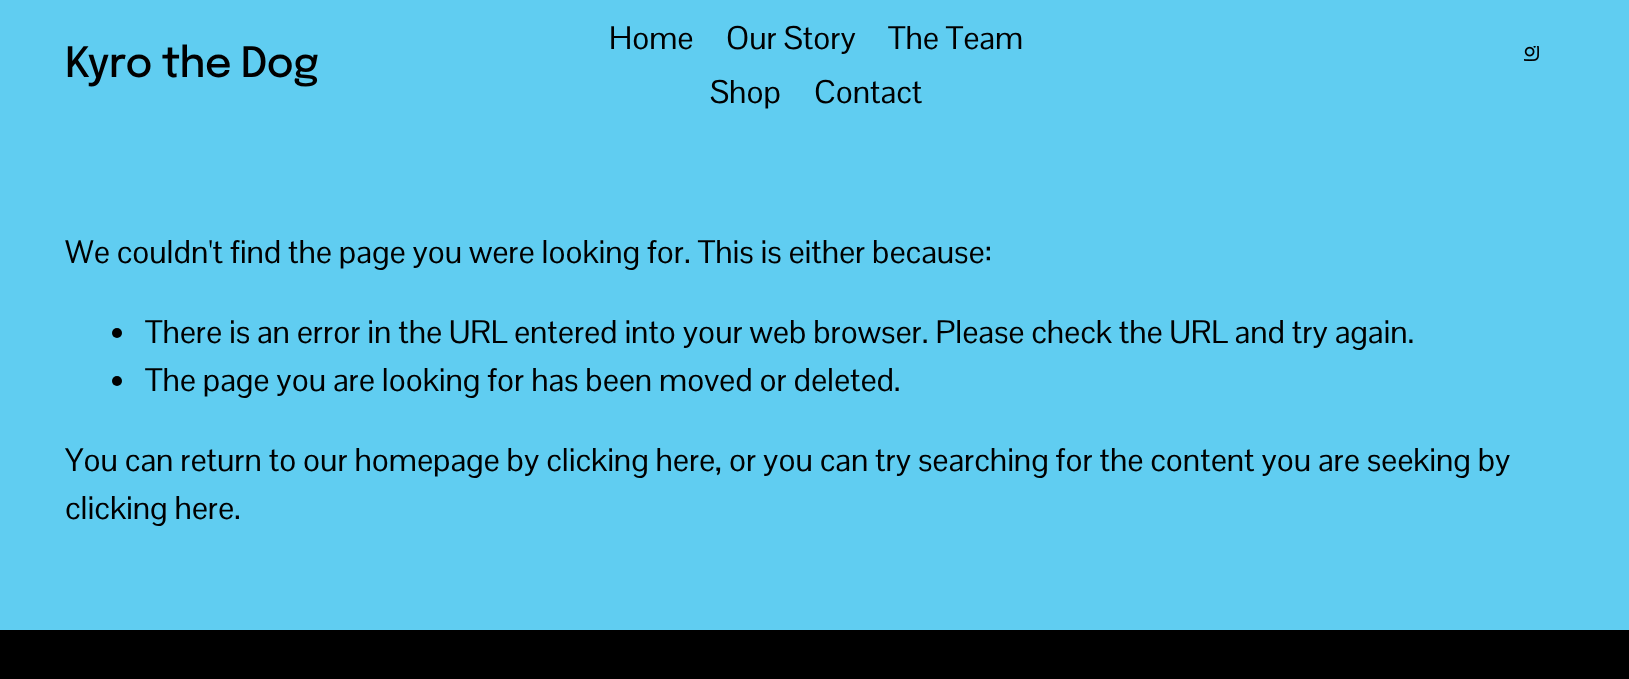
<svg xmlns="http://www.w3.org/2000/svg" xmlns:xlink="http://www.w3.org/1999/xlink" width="1629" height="679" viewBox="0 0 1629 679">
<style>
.cls-1{font:500 41.75px Epilogue;letter-spacing:-0.8px;fill:#000000}
.cls-2{font:32px Pontano Sans;fill:#000000}
</style>
<rect width="100%" height="100%" fill="#60cdf1"/>
<image xlink:href="image0.png" x="1524" y="46" width="15" height="15"/>
<circle fill="#000000" cx="117" cy="333" r="5"/>
<circle fill="#000000" cx="117" cy="381" r="5"/>
<rect fill="#000000" x="0" y="630" width="1629" height="49"/>
<text class="cls-1" x="65" y="77">Kyro the Dog</text>
<text class="cls-2" x="609" y="49">Home</text>
<text class="cls-2" x="726" y="49">Our Story</text>
<text class="cls-2" x="888" y="49">The Team</text>
<text class="cls-2" x="710" y="103">Shop</text>
<text class="cls-2" x="814" y="103">Contact</text>
<text class="cls-2" x="65" y="263">We couldn't find the page you were looking for. This is either because:</text>
<text class="cls-2"><tspan x="145" y="343">There is an error in the URL entered into your web browser. Please check the URL and try again.</tspan><tspan x="145" y="391">The page you are looking for has been moved or deleted.</tspan></text>
<text class="cls-2"><tspan x="65" y="471">You can return to our homepage by clicking here, or you can try searching for the content you are seeking by</tspan><tspan x="65" y="519">clicking here.</tspan></text>
</svg>
